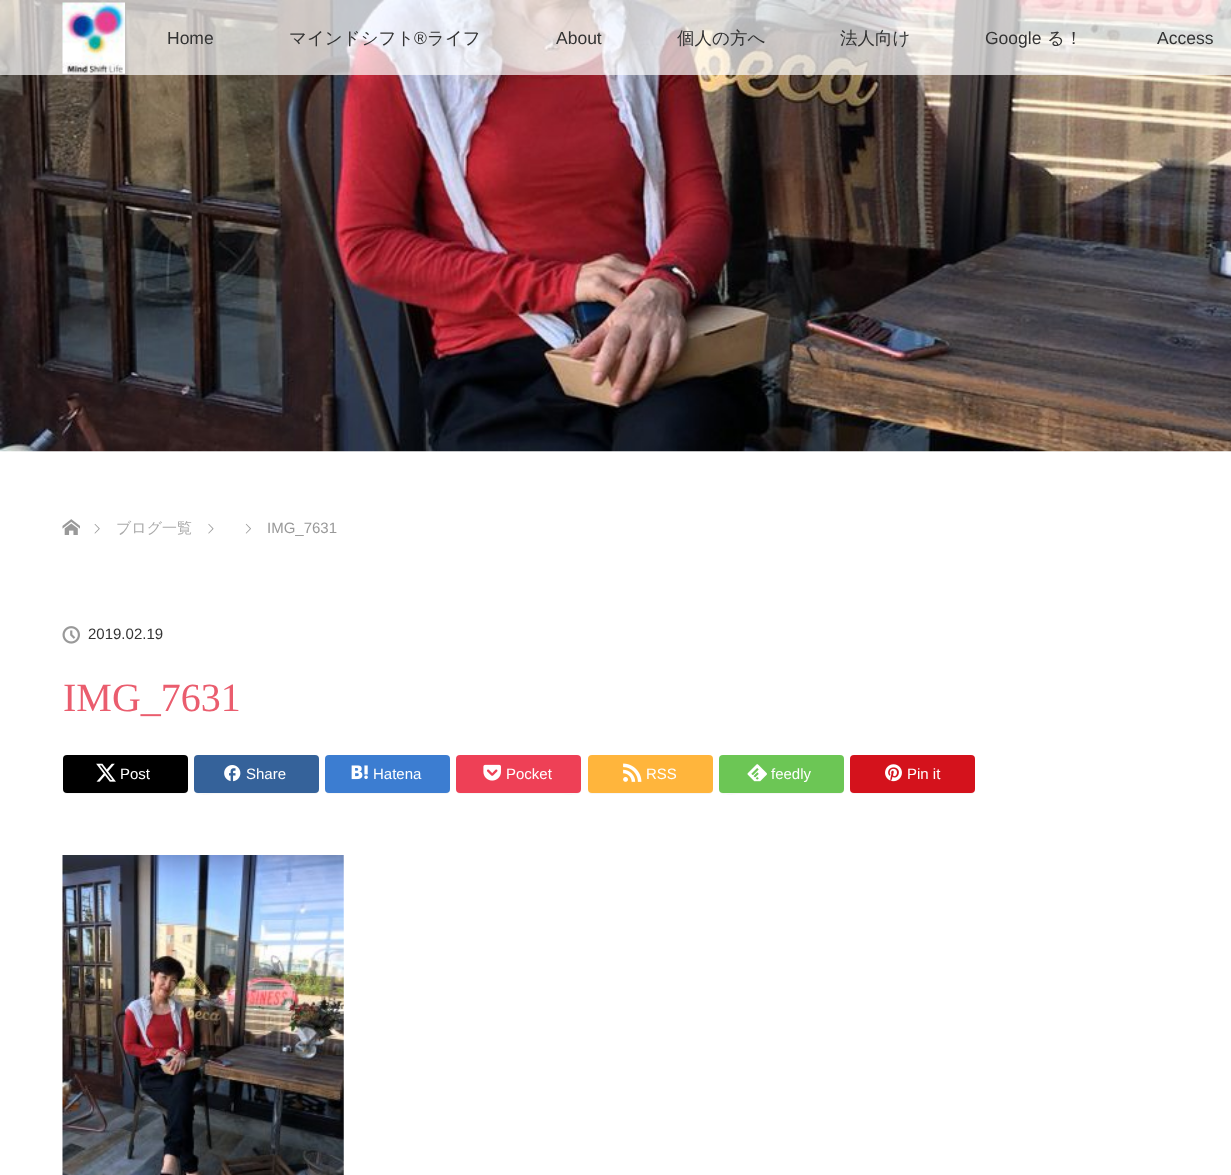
<svg xmlns="http://www.w3.org/2000/svg" xmlns:xlink="http://www.w3.org/1999/xlink" width="1231" height="1175" viewBox="0 0 1231 1175">
<style>
.cls-1{font:17.5px Liberation Sans;fill:#333333}
.cls-2{font:500 17.5px WenQuanYi Zen Hei;fill:#333333}
.cls-3{font:500 15px WenQuanYi Zen Hei;fill:#aaaaaa}
.cls-4{font:15px Liberation Sans;fill:#999999}
.cls-5{font:15px Liberation Sans;fill:#333333}
.cls-6{font:40px Liberation Serif;fill:#ea5d6e}
.cls-7{font:15px Liberation Sans;fill:#ffffff}
</style>
<rect width="100%" height="100%" fill="#ffffff"/>
<image xlink:href="image1.png" x="0" y="0" width="1231" height="452"/>
<rect fill="#ffffff" fill-opacity="0.7" x="0" y="0" width="1231" height="75"/>
<image xlink:href="image0.png" x="62" y="2" width="63" height="72"/>
<image xlink:href="image2.png" x="62" y="519" width="18" height="16"/>
<image xlink:href="image3.png" x="94" y="524" width="6" height="10"/>
<image xlink:href="image4.png" x="208" y="523" width="6" height="11"/>
<image xlink:href="image5.png" x="245" y="523" width="6" height="11"/>
<image xlink:href="image6.png" x="62" y="626" width="18" height="18"/>
<path fill="#f7f7f7" d="M63 791C63 793 65 794 67 794H184C186 794 188 792 188 790V760L187 758L188 779C188 782 190 792 184 792H66C65 792 64 792 63 791Z"/>
<rect fill="#000000" x="63" y="755" width="125" height="38" rx="4"/>
<image xlink:href="image7.png" x="96" y="763" width="20" height="19"/>
<path fill="#f7f7f7" d="M194 790C194 797 210 794 218 794H315C321 794 319 783 319 780V759V784C319 787 320 792 315 792H217C217 792 196 796 194 790Z"/>
<rect fill="#35629a" x="194" y="755" width="125" height="38" rx="4"/>
<image xlink:href="image8.png" x="224" y="765" width="17" height="17"/>
<path fill="#f7f7f7" d="M325 789V790C325 792 327 794 329 794H446C448 794 450 792 450 790V789C450 791 448 792 446 792H329C327 792 325 791 325 789Z"/>
<rect fill="#3c7dd1" x="325" y="755" width="125" height="38" rx="4"/>
<image xlink:href="image9.png" x="351" y="765" width="17" height="15"/>
<path fill="#f7f7f7" d="M456 759V780C456 783 454 794 460 794H558C565 794 581 797 581 790C579 796 558 792 558 792H460C455 792 456 787 456 784Z"/>
<rect fill="#ee4056" x="456" y="755" width="125" height="38" rx="4"/>
<image xlink:href="image10.png" x="483" y="764" width="18" height="17"/>
<path fill="#f7f7f7" d="M588 791C588 793 590 794 592 794H709C711 794 713 792 713 790V760L712 758V779C712 782 715 792 709 792H591C590 792 589 792 588 791Z"/>
<rect fill="#ffb53c" x="588" y="755" width="125" height="38" rx="4"/>
<image xlink:href="image11.png" x="623" y="763" width="19" height="19"/>
<path fill="#f7f7f7" d="M719 790C719 797 735 794 742 794H840C846 794 844 783 844 780V759V784C844 787 845 792 840 792H742C742 792 721 796 719 790Z"/>
<rect fill="#6cc655" x="719" y="755" width="125" height="38" rx="4"/>
<image xlink:href="image12.png" x="747" y="764" width="20" height="18"/>
<path fill="#f7f7f7" d="M850 789V790C850 792 852 794 854 794H971C973 794 975 792 975 790V789C975 791 973 792 971 792H854C852 792 850 791 850 789Z"/>
<rect fill="#d4121c" x="850" y="755" width="125" height="38" rx="4"/>
<image xlink:href="image13.png" x="885" y="764" width="17" height="18"/>
<image xlink:href="image14.png" x="62" y="855" width="282" height="320"/>
<text class="cls-1" x="167" y="44">Home</text>
<text class="cls-2" x="289" y="44">マインドシフト</text>
<text class="cls-1" x="414" y="44">®︎</text>
<text class="cls-2" x="427" y="44">ライフ</text>
<text class="cls-1" x="556" y="44">About</text>
<text class="cls-2" x="677" y="44">個人の方へ</text>
<text class="cls-2" x="840" y="44">法人向け</text>
<text class="cls-1" x="985" y="44">Google</text>
<text class="cls-2" x="1047" y="44">る！</text>
<text class="cls-1" x="1157" y="44">Access</text>
<text class="cls-3" x="116" y="533">ブログ一覧</text>
<text class="cls-4" x="267" y="533">IMG_7631</text>
<text class="cls-5" x="88" y="639">2019.02.19</text>
<text class="cls-6" x="63" y="711">IMG_7631</text>
<text class="cls-7" x="120" y="779">Post</text>
<text class="cls-7" x="246" y="779">Share</text>
<text class="cls-7" x="373" y="779">Hatena</text>
<text class="cls-7" x="506" y="779">Pocket</text>
<text class="cls-7" x="646" y="779">RSS</text>
<text class="cls-7" x="771" y="779">feedly</text>
<text class="cls-7" x="907" y="779">Pin it</text>
</svg>
